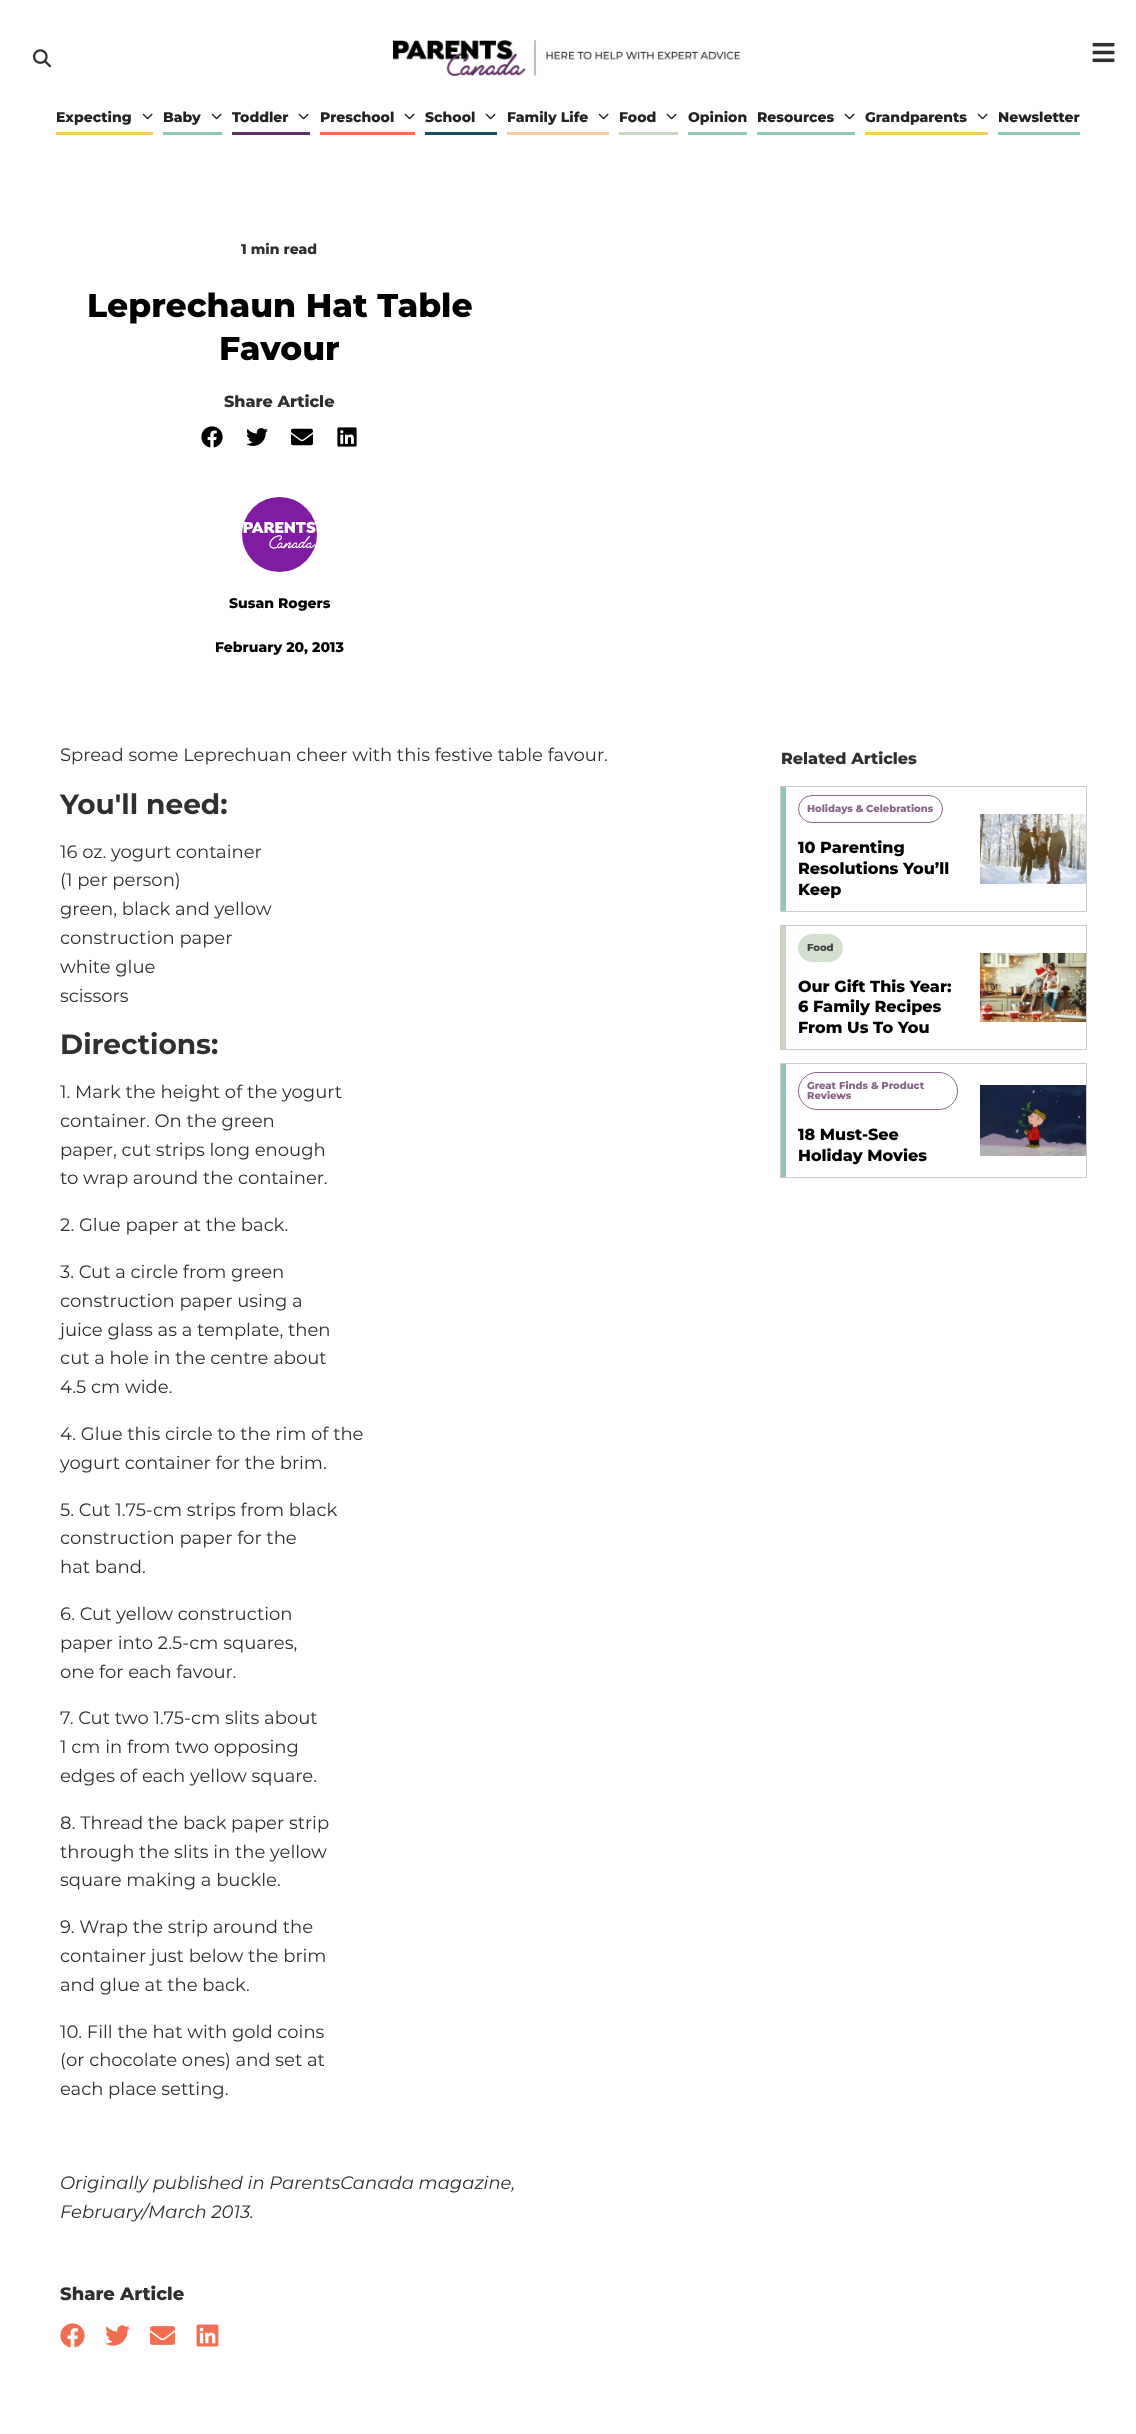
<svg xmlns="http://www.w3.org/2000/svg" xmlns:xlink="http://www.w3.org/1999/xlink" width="1136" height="2434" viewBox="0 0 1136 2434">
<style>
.cls-1{font:800 14px Montserrat;fill:#222222}
.cls-2{font:800 14px Montserrat;fill:#2f2f2f}
.cls-3{font:800 33px Montserrat;fill:#000000}
.cls-4{font:800 16px Montserrat;fill:#2f2f2f}
.cls-5{font:800 14px Montserrat;fill:#000000}
.cls-6{font:18px Montserrat;fill:#2f2f2f}
.cls-7{font:bold 28px Montserrat;fill:#2f2f2f}
.cls-8{font:italic 18px Montserrat;fill:#2f2f2f}
.cls-9{font:800 18px Montserrat;fill:#2f2f2f}
.cls-10{font:800 10px Montserrat;fill:#886588}
.cls-11{font:800 16px Montserrat;fill:#000000}
.cls-12{font:800 10px Montserrat;fill:#404040}
</style>
<rect width="100%" height="100%" fill="#ffffff"/>
<image xlink:href="image0.png" x="33" y="49" width="18" height="19"/>
<image xlink:href="image1.png" x="393" y="40" width="348" height="36"/>
<image xlink:href="image2.png" x="1092" y="42" width="23" height="21"/>
<rect fill="#f1cf59" x="56" y="132" width="97" height="3"/>
<image xlink:href="image3.png" x="142" y="113" width="11" height="7"/>
<rect fill="#8dc8bb" x="163" y="132" width="59" height="3"/>
<image xlink:href="image3.png" x="211" y="113" width="11" height="7"/>
<rect fill="#603160" x="232" y="132" width="78" height="3"/>
<image xlink:href="image3.png" x="298" y="113" width="11" height="7"/>
<rect fill="#f36e51" x="320" y="132" width="95" height="3"/>
<image xlink:href="image3.png" x="404" y="113" width="11" height="7"/>
<rect fill="#165056" x="425" y="132" width="72" height="3"/>
<image xlink:href="image3.png" x="485" y="113" width="11" height="7"/>
<rect fill="#f8cb9d" x="507" y="132" width="102" height="3"/>
<image xlink:href="image3.png" x="598" y="113" width="11" height="7"/>
<rect fill="#c6d7c0" x="619" y="132" width="59" height="3"/>
<image xlink:href="image3.png" x="666" y="113" width="11" height="7"/>
<rect fill="#8dc8bb" x="688" y="132" width="59" height="3"/>
<rect fill="#8dc8bb" x="757" y="132" width="98" height="3"/>
<image xlink:href="image3.png" x="844" y="113" width="11" height="7"/>
<rect fill="#f1cf59" x="865" y="132" width="123" height="3"/>
<image xlink:href="image3.png" x="977" y="113" width="11" height="7"/>
<rect fill="#8dc8bb" x="998" y="132" width="82" height="3"/>
<image xlink:href="image4.png" x="201" y="426" width="22" height="22"/>
<image xlink:href="image5.png" x="246" y="428" width="22" height="18"/>
<image xlink:href="image6.png" x="291" y="428" width="22" height="18"/>
<image xlink:href="image7.png" x="337" y="427" width="20" height="20"/>
<image xlink:href="image8.png" x="242" y="497" width="75" height="75"/>
<image xlink:href="image9.png" x="60" y="2323" width="25" height="25"/>
<image xlink:href="image10.png" x="105" y="2325" width="25" height="21"/>
<image xlink:href="image11.png" x="150" y="2326" width="25" height="19"/>
<image xlink:href="image12.png" x="196" y="2324" width="23" height="23"/>
<rect fill="none" stroke="#cccccc" x="780.5" y="786.5" width="306" height="125"/>
<rect fill="#8dc8bb" x="781" y="787" width="5" height="124"/>
<rect fill="none" stroke="#886588" x="798.5" y="795.5" width="144" height="27" rx="13.5"/>
<image xlink:href="image13.png" x="980" y="814" width="106" height="70"/>
<rect fill="none" stroke="#cccccc" x="780.5" y="925.5" width="306" height="124"/>
<rect fill="#c6d7c0" x="781" y="926" width="5" height="123"/>
<rect fill="#d4e1d0" stroke="#d4e1d0" x="798.5" y="934.5" width="44" height="27" rx="13.5"/>
<image xlink:href="image14.png" x="980" y="953" width="106" height="69"/>
<rect fill="none" stroke="#cccccc" x="780.5" y="1063.5" width="306" height="114"/>
<rect fill="#8dc8bb" x="781" y="1064" width="5" height="113"/>
<rect fill="none" stroke="#886588" x="798.5" y="1072.5" width="159" height="37" rx="18.5"/>
<image xlink:href="image15.png" x="980" y="1085" width="106" height="71"/>
<text class="cls-1" x="56" y="122">Expecting</text>
<text class="cls-1" x="163" y="122">Baby</text>
<text class="cls-1" x="232" y="122">Toddler</text>
<text class="cls-1" x="320" y="122">Preschool</text>
<text class="cls-1" x="425" y="122">School</text>
<text class="cls-1" x="507" y="122">Family Life</text>
<text class="cls-1" x="619" y="122">Food</text>
<text class="cls-1" x="688" y="122">Opinion</text>
<text class="cls-1" x="757" y="122">Resources</text>
<text class="cls-1" x="865" y="122">Grandparents</text>
<text class="cls-1" x="998" y="122">Newsletter</text>
<text class="cls-2" x="241" y="254">1 min read</text>
<text class="cls-3" x="87" y="317">Leprechaun Hat Table</text>
<text class="cls-3" x="219" y="360">Favour</text>
<text class="cls-4" x="224" y="407">Share Article</text>
<text class="cls-5" x="229" y="608">Susan Rogers</text>
<text class="cls-5" x="215" y="652">February 20, 2013</text>
<text class="cls-6" x="60" y="761">Spread some Leprechuan cheer with this festive table favour.</text>
<text class="cls-7" x="60" y="814">You'll need:</text>
<text class="cls-6"><tspan x="60" y="858">16 oz. yogurt container</tspan><tspan x="60" y="886">(1 per person)</tspan><tspan x="60" y="915">green, black and yellow</tspan><tspan x="60" y="944">construction paper</tspan><tspan x="60" y="973">white glue</tspan><tspan x="60" y="1002">scissors</tspan></text>
<text class="cls-7" x="60" y="1054">Directions:</text>
<text class="cls-6"><tspan x="60" y="1098">1. Mark the height of the yogurt</tspan><tspan x="60" y="1127">container. On the green</tspan><tspan x="60" y="1156">paper, cut strips long enough</tspan><tspan x="60" y="1184">to wrap around the container.</tspan></text>
<text class="cls-6" x="60" y="1231">2. Glue paper at the back.</text>
<text class="cls-6"><tspan x="60" y="1278">3. Cut a circle from green</tspan><tspan x="60" y="1307">construction paper using a</tspan><tspan x="60" y="1336">juice glass as a template, then</tspan><tspan x="60" y="1364">cut a hole in the centre about</tspan><tspan x="60" y="1393">4.5 cm wide.</tspan></text>
<text class="cls-6"><tspan x="60" y="1440">4. Glue this circle to the rim of the</tspan><tspan x="60" y="1469">yogurt container for the brim.</tspan></text>
<text class="cls-6"><tspan x="60" y="1516">5. Cut 1.75-cm strips from black</tspan><tspan x="60" y="1544">construction paper for the</tspan><tspan x="60" y="1573">hat band.</tspan></text>
<text class="cls-6"><tspan x="60" y="1620">6. Cut yellow construction</tspan><tspan x="60" y="1649">paper into 2.5-cm squares,</tspan><tspan x="60" y="1678">one for each favour.</tspan></text>
<text class="cls-6"><tspan x="60" y="1724">7. Cut two 1.75-cm slits about</tspan><tspan x="60" y="1753">1 cm in from two opposing</tspan><tspan x="60" y="1782">edges of each yellow square.</tspan></text>
<text class="cls-6"><tspan x="60" y="1829">8. Thread the back paper strip</tspan><tspan x="60" y="1858">through the slits in the yellow</tspan><tspan x="60" y="1886">square making a buckle.</tspan></text>
<text class="cls-6"><tspan x="60" y="1933">9. Wrap the strip around the</tspan><tspan x="60" y="1962">container just below the brim</tspan><tspan x="60" y="1991">and glue at the back.</tspan></text>
<text class="cls-6"><tspan x="60" y="2038">10. Fill the hat with gold coins</tspan><tspan x="60" y="2066">(or chocolate ones) and set at</tspan><tspan x="60" y="2095">each place setting.</tspan></text>
<text class="cls-8"><tspan x="60" y="2189">Originally published in ParentsCanada magazine,</tspan><tspan x="60" y="2218">February/March 2013.</tspan></text>
<text class="cls-9" x="60" y="2300">Share Article</text>
<text class="cls-4" x="781" y="764">Related Articles</text>
<text class="cls-10" x="807" y="812">Holidays &amp; Celebrations</text>
<text class="cls-11"><tspan x="798" y="853">10 Parenting</tspan><tspan x="798" y="874">Resolutions You’ll</tspan><tspan x="798" y="895">Keep</tspan></text>
<text class="cls-12" x="807" y="951">Food</text>
<text class="cls-11"><tspan x="798" y="992">Our Gift This Year:</tspan><tspan x="798" y="1012">6 Family Recipes</tspan><tspan x="798" y="1033">From Us To You</tspan></text>
<text class="cls-10"><tspan x="807" y="1089">Great Finds &amp; Product</tspan><tspan x="807" y="1099">Reviews</tspan></text>
<text class="cls-11"><tspan x="798" y="1140">18 Must-See</tspan><tspan x="798" y="1161">Holiday Movies</tspan></text>
</svg>
